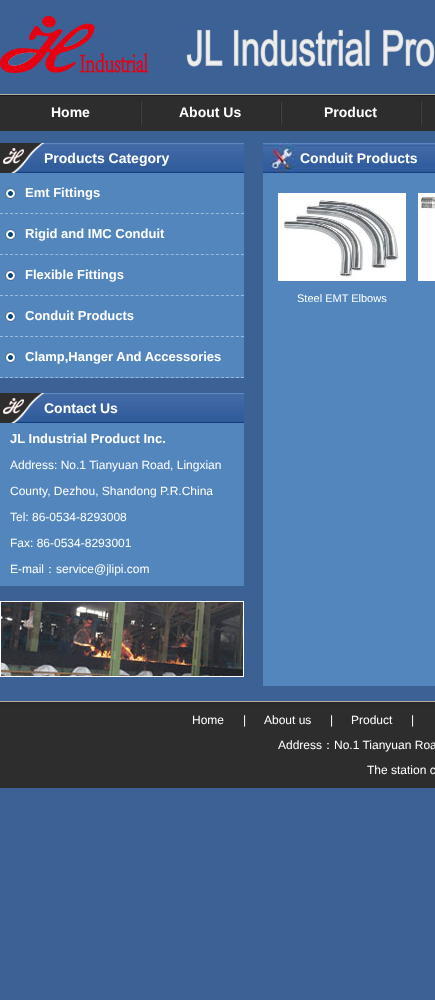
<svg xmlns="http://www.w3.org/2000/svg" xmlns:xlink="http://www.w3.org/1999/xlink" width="435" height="1000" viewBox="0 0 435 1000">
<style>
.cls-1{font:bold 14px Liberation Sans;fill:#ffffff}
.cls-2{font:bold 13px Liberation Sans;fill:#ffffff}
.cls-3{font:12px Liberation Sans;fill:#ffffff}
.cls-4{font:500 12px WenQuanYi Zen Hei;fill:#ffffff}
.cls-5{font:11px Liberation Sans;fill:#ffffff}
</style>
<rect width="100%" height="100%" fill="#3c6195"/>
<image xlink:href="image0.png" x="0" y="16" width="435" height="62"/>
<image xlink:href="image1.png" x="0" y="94" width="435" height="37"/>
<image xlink:href="image2.png" x="140" y="102" width="2" height="23"/>
<image xlink:href="image2.png" x="280" y="102" width="2" height="23"/>
<image xlink:href="image2.png" x="420" y="102" width="2" height="23"/>
<image xlink:href="image3.png" x="0" y="143" width="244" height="30"/>
<rect fill="#5386bd" x="0" y="173" width="244" height="205"/>
<image xlink:href="image4.png" x="5" y="188" width="11" height="11"/>
<path fill="none" stroke="#9dbada" stroke-dasharray="3 2.02" d="M0 213.5H244"/>
<image xlink:href="image4.png" x="5" y="229" width="11" height="11"/>
<path fill="none" stroke="#9dbada" stroke-dasharray="3 2.02" d="M0 254.5H244"/>
<image xlink:href="image4.png" x="5" y="270" width="11" height="11"/>
<path fill="none" stroke="#9dbada" stroke-dasharray="3 2.02" d="M0 295.5H244"/>
<image xlink:href="image4.png" x="5" y="311" width="11" height="11"/>
<path fill="none" stroke="#9dbada" stroke-dasharray="3 2.02" d="M0 336.5H244"/>
<image xlink:href="image4.png" x="5" y="352" width="11" height="11"/>
<path fill="none" stroke="#9dbada" stroke-dasharray="3 2.02" d="M0 377.5H244"/>
<image xlink:href="image3.png" x="0" y="393" width="244" height="30"/>
<rect fill="#5386bd" x="0" y="423" width="244" height="163"/>
<rect fill="none" stroke="#ffffff" x="0.5" y="601.5" width="243" height="75"/>
<image xlink:href="image5.png" x="1" y="602" width="242" height="74"/>
<image xlink:href="image6.png" x="263" y="143" width="172" height="30"/>
<rect fill="#5386bd" x="263" y="173" width="172" height="513"/>
<rect fill="#ffffff" x="418" y="193" width="17" height="88"/>
<image xlink:href="image7.png" x="419" y="197" width="16" height="13"/>
<rect fill="#ffffff" x="278" y="193" width="128" height="88"/>
<image xlink:href="image8.png" x="283" y="200" width="116" height="78"/>
<image xlink:href="image9.png" x="0" y="701" width="435" height="87"/>
<text class="cls-1" x="51" y="117">Home</text>
<text class="cls-1" x="179" y="117">About Us</text>
<text class="cls-1" x="324" y="117">Product</text>
<text class="cls-1" x="44" y="163">Products Category</text>
<text class="cls-2" x="25" y="197">Emt Fittings</text>
<text class="cls-2" x="25" y="238">Rigid and IMC Conduit</text>
<text class="cls-2" x="25" y="279">Flexible Fittings</text>
<text class="cls-2" x="25" y="320">Conduit Products</text>
<text class="cls-2" x="25" y="361">Clamp,Hanger And Accessories</text>
<text class="cls-1" x="44" y="413">Contact Us</text>
<text class="cls-2" x="10" y="443">JL Industrial Product Inc.</text>
<text class="cls-3" x="10" y="469">Address: No.1 Tianyuan Road, Lingxian</text>
<text class="cls-3" x="10" y="495">County, Dezhou, Shandong P.R.China</text>
<text class="cls-3" x="10" y="521">Tel: 86-0534-8293008</text>
<text class="cls-3" x="10" y="547">Fax: 86-0534-8293001</text>
<text class="cls-3" x="10" y="573">E-mail</text>
<text class="cls-4" x="44" y="573">：</text>
<text class="cls-3" x="56" y="573">service@jlipi.com</text>
<text class="cls-1" x="300" y="163">Conduit Products</text>
<text class="cls-5" x="297" y="302">Steel EMT Elbows</text>
<text class="cls-3" x="192" y="724">Home</text>
<text class="cls-3" x="243" y="724">|</text>
<text class="cls-3" x="264" y="724">About us</text>
<text class="cls-3" x="330" y="724">|</text>
<text class="cls-3" x="351" y="724">Product</text>
<text class="cls-3" x="411" y="724">|</text>
<text class="cls-3" x="278" y="749">Address</text>
<text class="cls-4" x="322" y="749">：</text>
<text class="cls-3" x="334" y="749">No.1 Tianyuan Roa</text>
<text class="cls-3" x="367" y="774">The station c</text>
</svg>
